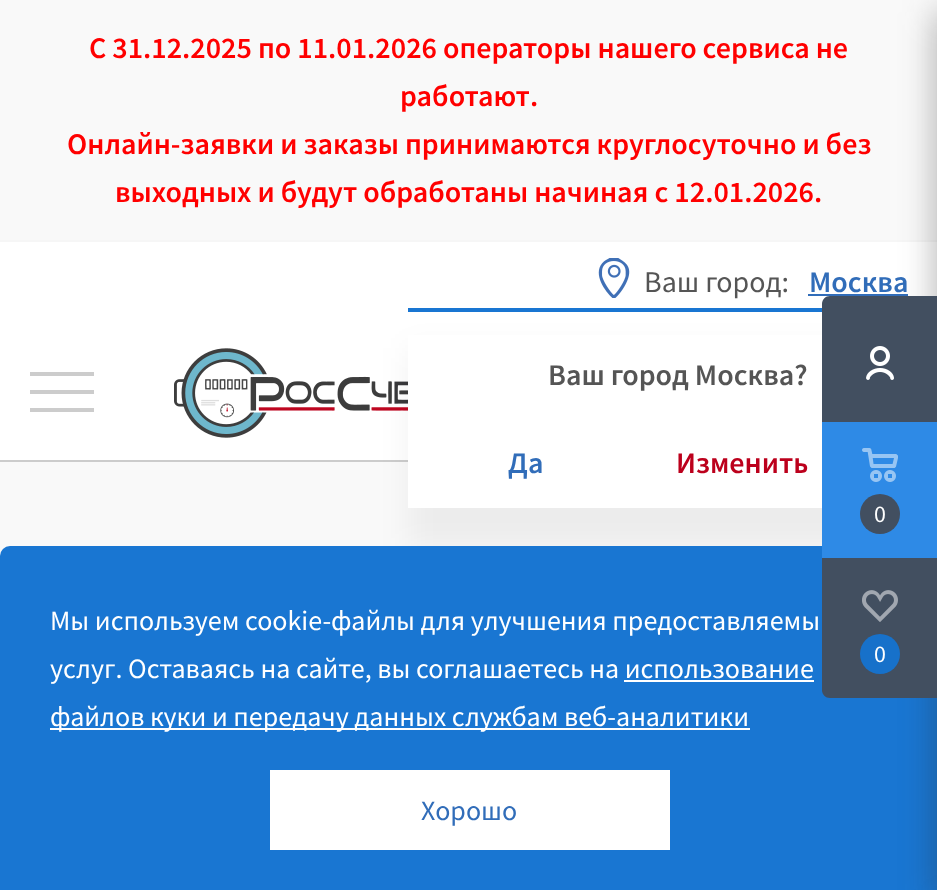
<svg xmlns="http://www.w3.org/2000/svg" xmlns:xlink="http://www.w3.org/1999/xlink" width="937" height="890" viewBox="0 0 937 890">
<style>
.cls-1{font:600 30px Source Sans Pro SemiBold;fill:#ff0000}
.cls-2{font:30px Source Sans Pro;fill:#555555}
.cls-3{font:600 30px Source Sans Pro SemiBold;fill:#316db9}
.cls-4{font:600 30px Source Sans Pro SemiBold;fill:#555555}
.cls-5{font:600 30px Source Sans Pro SemiBold;fill:#bc001c}
.cls-6{font:24px Source Sans Pro;fill:#ffffff}
.cls-7{font:28px Source Sans Pro;fill:#ffffff}
.cls-8{font:28px Source Sans Pro;fill:#316db9}
</style>
<rect width="100%" height="100%" fill="#ffffff"/>
<rect fill="#f9f9f9" x="0" y="0" width="937" height="240"/>
<rect fill="#f6f6f6" x="0" y="240" width="937" height="2"/>
<rect fill="#cccccc" x="30" y="390" width="64" height="4"/>
<rect fill="#cccccc" x="30" y="372" width="64" height="4"/>
<rect fill="#cccccc" x="30" y="408" width="64" height="4"/>
<image xlink:href="image0.png" x="174" y="348" width="234" height="90"/>
<image xlink:href="image1.png" x="598" y="258" width="32" height="40"/>
<rect fill="#316db9" x="808" y="294" width="100" height="2"/>
<rect fill="#cccccc" x="0" y="460" width="408" height="2"/>
<rect fill="#f9f9f9" x="0" y="462" width="822" height="94"/>
<rect fill="#000000" fill-opacity="0.05" filter="blur(15px)" x="408" y="348" width="500" height="200"/>
<rect fill="#ffffff" x="408" y="335" width="414" height="173"/>
<rect fill="#1976d2" x="408" y="308" width="414" height="4"/>
<rect fill="#1976d2" x="0" y="546" width="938" height="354" rx="10"/>
<rect fill="#2c2c2c" fill-opacity="0.4" filter="blur(18px)" x="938" y="12" width="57" height="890" rx="4"/>
<path fill="#424f60" d="M830 296H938V698H830C825.5 698 822 694.5 822 690V304C822 299.5 825.5 296 830 296Z"/>
<image xlink:href="image2.png" x="866" y="346" width="28" height="34"/>
<rect fill="#2e8ae6" x="822" y="422" width="115" height="136"/>
<image xlink:href="image3.png" x="862" y="448" width="36" height="34"/>
<circle fill="#424f60" cx="880" cy="514" r="20"/>
<image xlink:href="image4.png" x="862" y="590" width="36" height="32"/>
<circle fill="#1771ca" cx="880" cy="654" r="20"/>
<rect fill="#ffffff" x="624" y="680" width="190" height="2"/>
<rect fill="#ffffff" x="50" y="728" width="700" height="2"/>
<rect fill="#ffffff" x="270" y="770" width="400" height="80"/>
<text class="cls-1" x="89" y="58">С 31.12.2025 по 11.01.2026 операторы нашего сервиса не</text>
<text class="cls-1" x="400" y="106">работают.</text>
<text class="cls-1" x="67" y="154">Онлайн-заявки и заказы принимаются круглосуточно и без</text>
<text class="cls-1" x="115" y="202">выходных и будут обработаны начиная с 12.01.2026.</text>
<text class="cls-2" x="644" y="292">Ваш город:</text>
<text class="cls-3" x="809" y="292">Москва</text>
<text class="cls-4" x="548" y="385">Ваш город Москва?</text>
<text class="cls-3" x="508" y="473">Да</text>
<text class="cls-5" x="676" y="473">Изменить</text>
<text class="cls-6" x="874" y="522">0</text>
<text class="cls-6" x="874" y="662">0</text>
<text class="cls-7"><tspan x="50" y="630">Мы используем cookie-файлы для улучшения предоставляемы</tspan><tspan x="50" y="678">услуг. Оставаясь на сайте, вы соглашаетесь на использование</tspan><tspan x="50" y="726">файлов куки и передачу данных службам веб-аналитики</tspan></text>
<text class="cls-8" x="421" y="820">Хорошо</text>
</svg>
